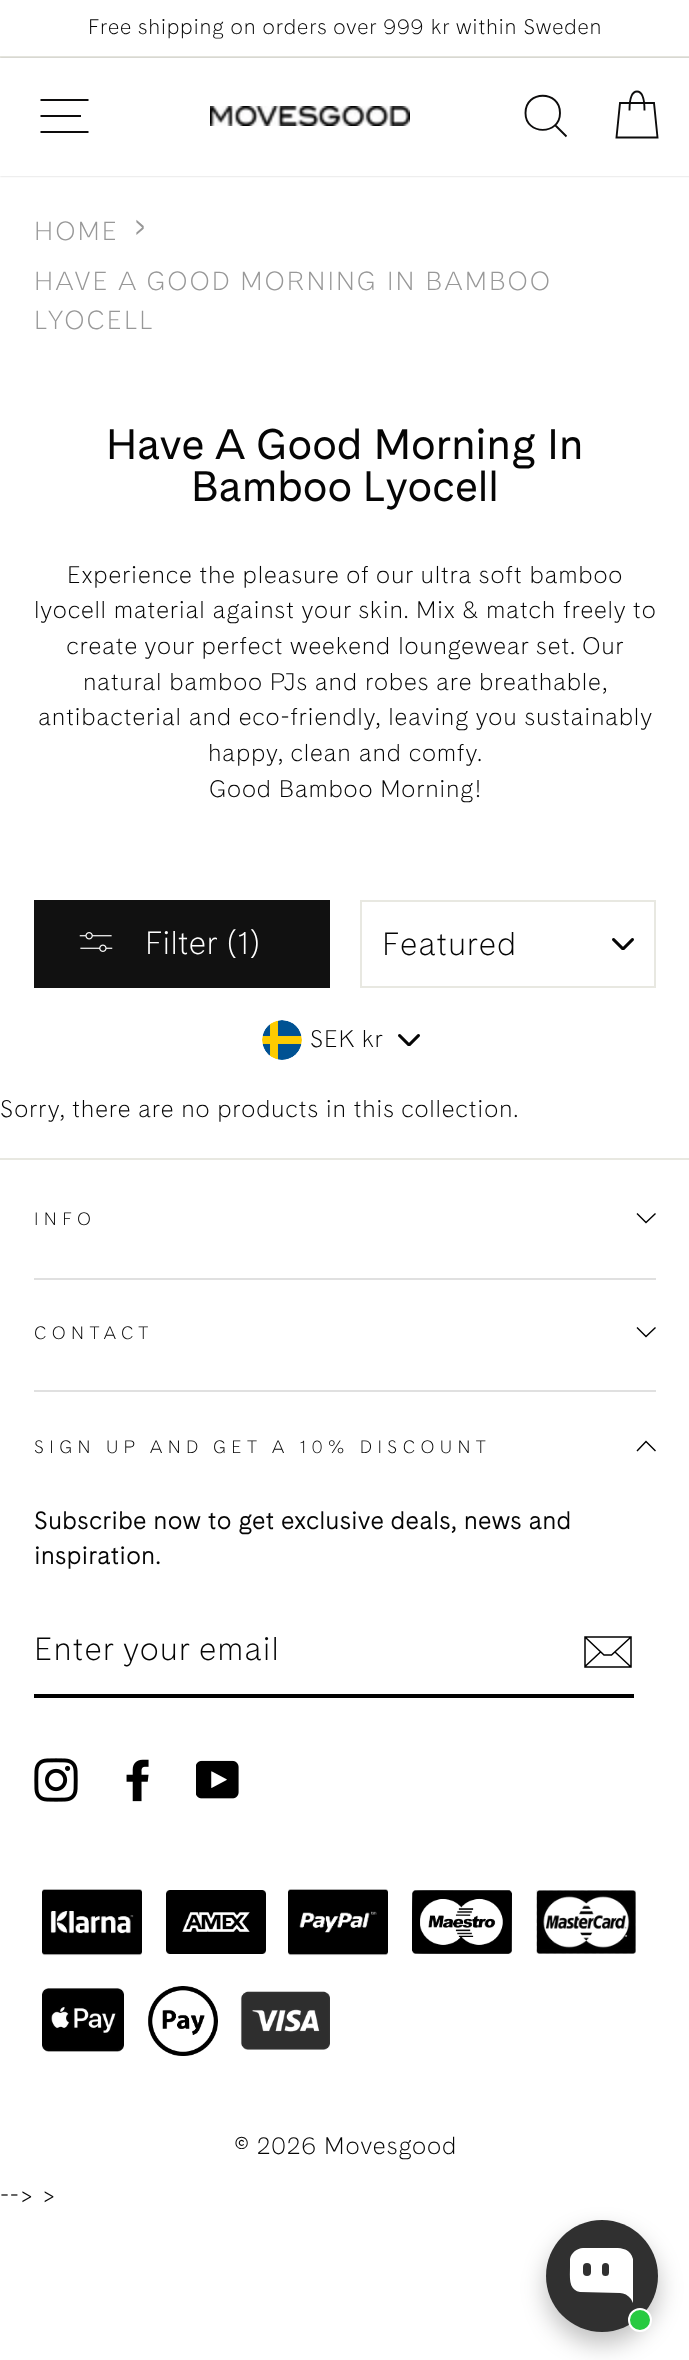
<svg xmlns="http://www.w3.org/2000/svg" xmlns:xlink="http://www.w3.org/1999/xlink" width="689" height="2360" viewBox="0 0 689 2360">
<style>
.cls-1{font:300 21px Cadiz;letter-spacing:0.6px;fill:#050505}
.cls-2{font:300 26px Cadiz;letter-spacing:2px;fill:#989898}
.cls-3{font:300 40px Cadiz;letter-spacing:2px;fill:#989898}
.cls-4{font:42.5px Cadiz;fill:#050505}
.cls-5{font:300 23.8px Cadiz;letter-spacing:0.6px;fill:#050505}
.cls-6{font:300 32px Cadiz;fill:#ffffff}
.cls-7{font:300 32px Cadiz;letter-spacing:0.75px;fill:#050505}
.cls-8{font:300 17.85px Cadiz;letter-spacing:5.35px;fill:#050505}
.cls-9{font:bold 23.8px Cadiz;letter-spacing:0.6px;fill:#050505}
.cls-10{font:300 24px Cadiz;letter-spacing:0.6px;fill:#050505}
</style>
<defs>
<clipPath id="clip1"><path d="M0 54H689V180H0ZM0 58H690V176H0Z" clip-rule="evenodd"/></clipPath>
</defs>
<rect width="100%" height="100%" fill="#ffffff"/>
<rect fill="#e8e8e1" x="0" y="56" width="689" height="2"/>
<g clip-path="url(#clip1)">
<rect fill="#000000" fill-opacity="0.2" filter="blur(1px)" x="0" y="58" width="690" height="118"/>
</g>
<path fill="none" stroke="#0d0c0c" stroke-width="1.9" d="M40.5 100H88.5M40.5 116H81M40.5 132H88.5"/>
<image xlink:href="image0.png" x="210" y="106" width="200" height="20"/>
<path fill="none" stroke="#0d0c0c" stroke-width="1.9" d="M560 113C560 135.5 525.5 135.5 525.5 113C525.5 90 560 90 560 113ZM566.5 136.5L555.5 125.5"/>
<path fill="none" stroke="#0d0c0c" stroke-width="1.9" d="M629.5 110.5C629.5 95.5 633 91.5 637 91.5C641 91.5 644.5 95.5 644.5 110.5M620 103H654L657.5 137.5H616.5Z"/>
<rect fill="#111111" x="34" y="900" width="296" height="88"/>
<image xlink:href="image1.png" x="79" y="932" width="34" height="20"/>
<image xlink:href="image2.png" x="612" y="938" width="22" height="12"/>
<rect fill="none" stroke="#e8e8e1" stroke-width="2" x="361" y="901" width="294" height="86"/>
<image xlink:href="image2.png" x="398" y="1034" width="22" height="12"/>
<image xlink:href="image3.png" x="262" y="1020" width="40" height="40"/>
<rect fill="#e8e8e1" x="0" y="1158" width="689" height="2"/>
<path fill="none" stroke="#000000" stroke-width="1.4" d="M637 1213.5L646 1222.5L655.5 1213.5"/>
<rect fill="#e0e0e0" x="34" y="1278" width="622" height="2"/>
<path fill="none" stroke="#000000" stroke-width="1.4" d="M637 1327.5L646 1336.5L655.5 1327.5"/>
<rect fill="#e0e0e0" x="34" y="1390" width="622" height="2"/>
<path fill="none" stroke="#000000" stroke-width="1.4" d="M637 1451L646 1441.5L655.5 1451"/>
<rect fill="#000000" x="34" y="1694" width="600" height="4"/>
<path fill="none" stroke="#000000" stroke-width="1.5" d="M631 1667H585V1637H631ZM585 1637L604 1655H611.5L631 1637M600.5 1652L585 1666.5M631 1667L615 1652"/>
<image xlink:href="image4.png" x="34" y="1758" width="44" height="44"/>
<image xlink:href="image5.png" x="126" y="1759" width="23" height="43"/>
<image xlink:href="image6.png" x="196" y="1760" width="43" height="39"/>
<image xlink:href="image7.png" x="42" y="1889" width="100" height="67"/>
<image xlink:href="image8.png" x="166" y="1890" width="100" height="64"/>
<image xlink:href="image9.png" x="288" y="1889" width="100" height="67"/>
<image xlink:href="image10.png" x="412" y="1890" width="100" height="64"/>
<image xlink:href="image11.png" x="536" y="1890" width="100" height="64"/>
<image xlink:href="image12.png" x="42" y="1988" width="82" height="64"/>
<image xlink:href="image13.png" x="148" y="1986" width="70" height="70"/>
<image xlink:href="image14.png" x="240" y="1991" width="90" height="59"/>
<rect fill="#000000" fill-opacity="0.25" filter="blur(12px)" x="546" y="2232" width="112" height="112" rx="56"/>
<circle fill="#303030" cx="602" cy="2276" r="56"/>
<path fill="#ffffff" fill-rule="evenodd" d="M583 2248C577 2248 571 2253 570 2259V2267C570 2277 568 2290 580 2292L620 2293C624 2293 628 2295 631 2299L633 2303V2259C630 2246 617 2248 608 2248Z"/>
<rect fill="#303030" x="583" y="2263" width="8" height="13" rx="4"/>
<rect fill="#303030" x="602" y="2263" width="7" height="13" rx="3.5"/>
<circle fill="#27ca40" stroke="#ffffff" stroke-width="2" cx="640" cy="2320" r="11"/>
<text class="cls-1" x="88" y="34">Free shipping on orders over 999 kr within Sweden</text>
<text class="cls-2" x="34" y="240">HOME</text>
<text class="cls-3" x="134" y="240">›</text>
<text class="cls-2"><tspan x="34" y="290">HAVE A GOOD MORNING IN BAMBOO</tspan><tspan x="34" y="329">LYOCELL</tspan></text>
<text class="cls-4" x="106" y="459">Have A Good Morning In</text>
<text class="cls-4" x="191" y="501">Bamboo Lyocell</text>
<text class="cls-5" x="67" y="583">Experience the pleasure of our ultra soft bamboo</text>
<text class="cls-5" x="34" y="618">lyocell material against your skin. Mix &amp; match freely to</text>
<text class="cls-5" x="66" y="654">create your perfect weekend loungewear set.</text>
<text class="cls-5" x="582" y="654">Our</text>
<text class="cls-5" x="83" y="690">natural bamboo PJs and robes are breathable,</text>
<text class="cls-5" x="38" y="725">antibacterial and eco-friendly, leaving you sustainably</text>
<text class="cls-5" x="208" y="761">happy, clean and comfy.</text>
<text class="cls-5" x="209" y="797">Good Bamboo Morning!</text>
<text class="cls-6" x="145" y="954">Filter (1)</text>
<text class="cls-7" x="382" y="955">Featured</text>
<text class="cls-5" x="310" y="1047">SEK kr</text>
<text class="cls-5" x="0" y="1117">Sorry, there are no products in this collection.</text>
<text class="cls-8" x="34" y="1225">INFO</text>
<text class="cls-8" x="34" y="1339">CONTACT</text>
<text class="cls-8" x="34" y="1453">SIGN UP AND GET A 10% DISCOUNT</text>
<text class="cls-9"><tspan x="34" y="1529">Subscribe now to get exclusive deals, news and</tspan><tspan x="34" y="1564">inspiration.</tspan></text>
<text class="cls-7" x="34" y="1660">Enter your email</text>
<text class="cls-10" x="234" y="2154">© 2026 Movesgood</text>
<text class="cls-5" x="0" y="2203">--&gt; &gt;</text>
</svg>
